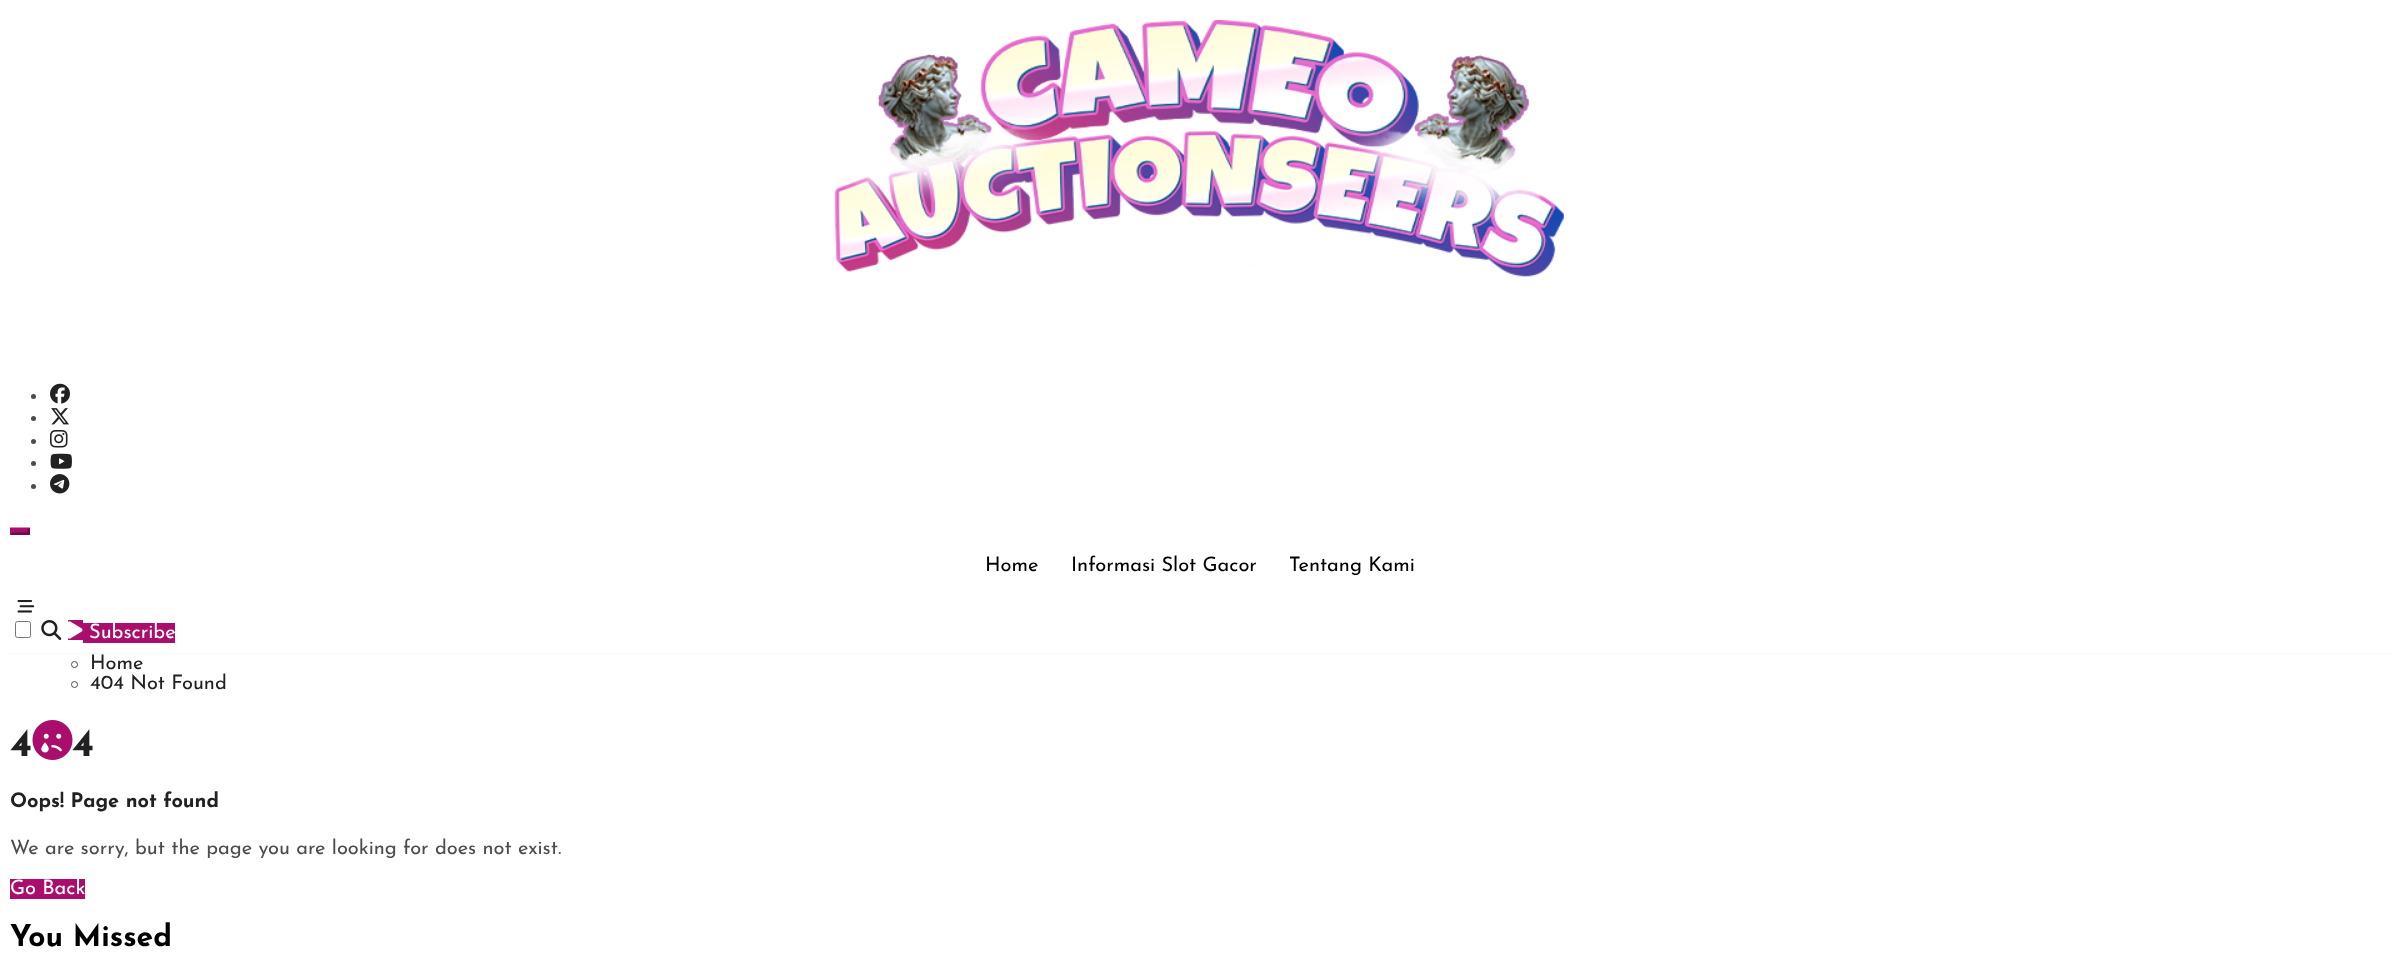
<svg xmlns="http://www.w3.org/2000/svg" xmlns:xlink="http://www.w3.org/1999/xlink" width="2400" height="960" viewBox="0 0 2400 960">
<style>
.cls-1{font:20px Josefin Sans;fill:#000000}
.cls-2{font:20px Josefin Sans;fill:#ffffff}
.cls-3{font:20px Josefin Sans;fill:#212121}
.cls-4{font:bold 40px Josefin Sans;fill:#212121}
.cls-5{font:bold 20px Josefin Sans;fill:#212121}
.cls-6{font:20px Josefin Sans;fill:#4c4c4c}
.cls-7{font:bold 30px Josefin Sans;fill:#000000}
</style>
<rect width="100%" height="100%" fill="#ffffff"/>
<rect fill="#f2f7fd" x="10" y="653" width="2380" height="1"/>
<image xlink:href="image0.png" x="834" y="20" width="730" height="257"/>
<circle fill="#4c4c4c" cx="33.5" cy="396.5" r="2.5"/>
<image xlink:href="image1.png" x="50" y="383" width="20" height="21"/>
<circle fill="#4c4c4c" cx="33.5" cy="418.5" r="2.5"/>
<image xlink:href="image2.png" x="51" y="408" width="18" height="17"/>
<circle fill="#4c4c4c" cx="33.5" cy="441.5" r="2.5"/>
<image xlink:href="image3.png" x="50" y="430" width="18" height="18"/>
<circle fill="#4c4c4c" cx="33.5" cy="463.5" r="2.5"/>
<image xlink:href="image4.png" x="50" y="453" width="22" height="16"/>
<circle fill="#4c4c4c" cx="33.5" cy="486.5" r="2.5"/>
<image xlink:href="image5.png" x="50" y="474" width="20" height="20"/>
<rect fill="#a90e6d" x="10" y="528" width="20" height="7"/>
<path fill="#a90e6d" d="M10 527.5H30L27.5 530H12.5Z"/>
<path fill="#710949" d="M30 527.5V535L27.5 532.5V530Z"/>
<path fill="#710949" d="M30 535H10L12.5 532.5H27.5Z"/>
<path fill="#a90e6d" d="M10 535V527.5L12.5 530V532.5Z"/>
<image xlink:href="image6.png" x="17" y="600" width="18" height="13"/>
<rect fill="none" stroke="#767676" x="15.5" y="621.5" width="15" height="16" rx="2"/>
<image xlink:href="image7.png" x="41" y="620" width="21" height="20"/>
<rect fill="#a90e6d" x="68" y="620" width="15" height="20"/>
<rect fill="#a90e6d" x="83" y="623" width="92" height="20"/>
<image xlink:href="image8.png" x="68" y="621" width="15" height="18"/>
<circle fill="none" stroke="#4c4c4c" cx="74.5" cy="664.5" r="3"/>
<circle fill="none" stroke="#4c4c4c" cx="74.5" cy="684.5" r="3"/>
<image xlink:href="image9.png" x="32" y="720" width="41" height="40"/>
<rect fill="#a90e6d" x="10" y="879" width="75" height="20"/>
<text class="cls-1" x="985" y="571">Home</text>
<text class="cls-1" x="1071" y="571">Informasi Slot Gacor</text>
<text class="cls-1" x="1289" y="571">Tentang Kami</text>
<text class="cls-2" x="89" y="638">Subscribe</text>
<text class="cls-3"><tspan x="90" y="669">Home</tspan><tspan x="90" y="689">404 Not Found</tspan></text>
<text class="cls-4" x="10" y="756">4</text>
<text class="cls-4" x="72" y="756">4</text>
<text class="cls-5" x="10" y="807">Oops! Page not found</text>
<text class="cls-6" x="10" y="854">We are sorry, but the page you are looking for does not exist.</text>
<text class="cls-2" x="10" y="894">Go Back</text>
<text class="cls-7" x="10" y="946">You Missed</text>
</svg>
